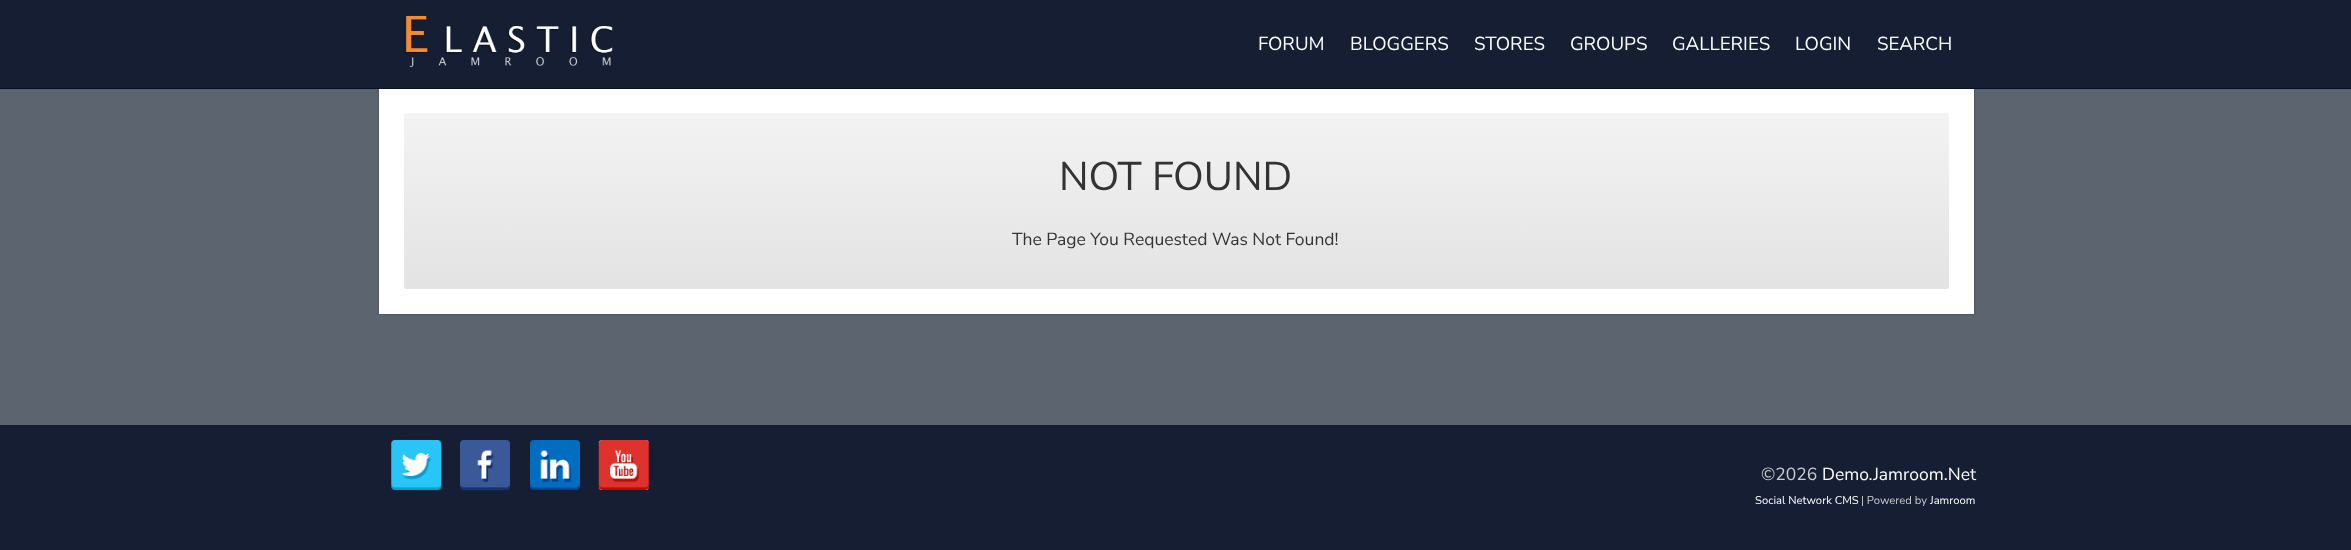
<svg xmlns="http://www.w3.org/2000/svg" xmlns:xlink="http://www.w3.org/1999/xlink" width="2351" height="550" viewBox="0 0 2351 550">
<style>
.cls-1{font:18.75px Nunito Sans;fill:#ffffff}
.cls-2{font:40px Nunito Sans;fill:#333333}
.cls-3{font:17.5px Nunito Sans;fill:#333333}
.cls-4{font:17.5px Nunito Sans;fill:#cccccc}
.cls-5{font:17.5px Nunito Sans;fill:#ffffff}
.cls-6{font:11.25px Nunito Sans;fill:#ffffff}
.cls-7{font:11.25px Nunito Sans;fill:#cccccc}
</style>
<defs>
<linearGradient id="g1" gradientUnits="userSpaceOnUse" x1="1176" y1="112" x2="1176" y2="289"><stop offset="0" stop-color="#f3f3f3"/><stop offset="1" stop-color="#e3e3e3"/></linearGradient>
</defs>
<rect width="100%" height="100%" fill="#5c6470"/>
<rect fill="#444444" filter="blur(1px)" x="379" y="88" width="1595" height="226"/>
<rect fill="#161e34" x="0" y="0" width="2351" height="88"/>
<rect fill="#081026" x="0" y="88" width="2351" height="1"/>
<image xlink:href="image0.png" x="404" y="15" width="209" height="52"/>
<rect fill="#ffffff" x="379" y="89" width="1595" height="225"/>
<rect fill="url(#g1)" x="404" y="113" width="1545" height="176" rx="2.5"/>
<rect fill="#161e34" x="0" y="425" width="2351" height="125"/>
<image xlink:href="image1.png" x="391" y="440" width="51" height="50"/>
<image xlink:href="image2.png" x="460" y="440" width="50" height="50"/>
<image xlink:href="image3.png" x="530" y="440" width="50" height="50"/>
<image xlink:href="image4.png" x="598" y="440" width="51" height="50"/>
<text class="cls-1" x="1258" y="50">FORUM</text>
<text class="cls-1" x="1350" y="50">BLOGGERS</text>
<text class="cls-1" x="1474" y="50">STORES</text>
<text class="cls-1" x="1570" y="50">GROUPS</text>
<text class="cls-1" x="1672" y="50">GALLERIES</text>
<text class="cls-1" x="1795" y="50">LOGIN</text>
<text class="cls-1" x="1877" y="50">SEARCH</text>
<text class="cls-2" x="1059" y="190">NOT FOUND</text>
<text class="cls-3" x="1012" y="245">The Page You Requested Was Not Found!</text>
<text class="cls-4" x="1761" y="480">©2026</text>
<text class="cls-5" x="1822" y="480">Demo.Jamroom.Net</text>
<text class="cls-6" x="1755" y="504">Social Network CMS</text>
<text class="cls-7" x="1861" y="504">| Powered by</text>
<text class="cls-6" x="1930" y="504">Jamroom</text>
</svg>
